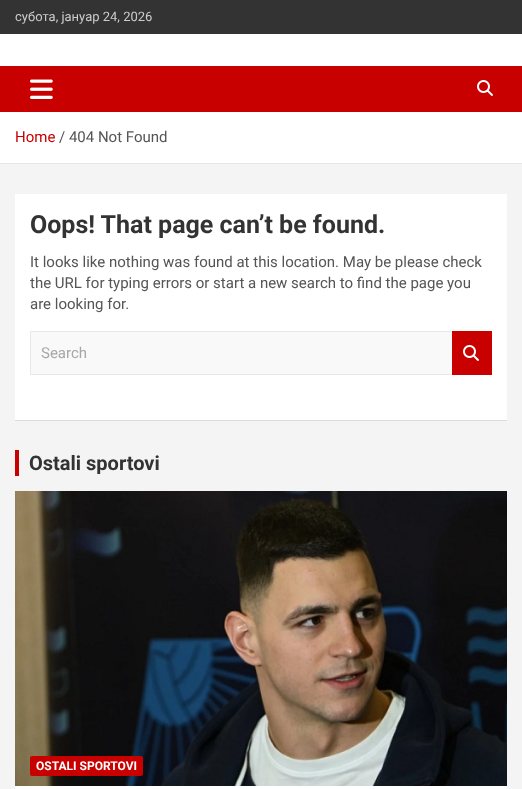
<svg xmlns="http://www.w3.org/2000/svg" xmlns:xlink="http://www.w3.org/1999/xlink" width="522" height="789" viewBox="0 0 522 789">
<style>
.cls-1{font:13px Roboto;fill:#cccccc}
.cls-2{font:15px Roboto;fill:#c80000}
.cls-3{font:15px Roboto;fill:#555555}
.cls-4{font:bold 25px Roboto;fill:#333333}
.cls-5{font:15px Roboto;fill:#a7a7a7}
.cls-6{font:bold 20px Roboto;fill:#333333}
.cls-7{font:bold 12px Roboto;fill:#ffffff}
</style>
<rect width="100%" height="100%" fill="#f4f4f4"/>
<rect fill="#333333" x="0" y="0" width="522" height="34"/>
<rect fill="#ffffff" x="0" y="34" width="522" height="32"/>
<rect fill="#c80000" x="0" y="66" width="522" height="46"/>
<image xlink:href="image0.png" x="30" y="79" width="23" height="20"/>
<image xlink:href="image1.png" x="477" y="80" width="16" height="16"/>
<rect fill="#ffffff" x="0" y="112" width="522" height="51"/>
<rect fill="#e6e6e6" x="0" y="163" width="522" height="1"/>
<rect fill="#000000" fill-opacity="0.1" filter="blur(0.5px)" x="15" y="195" width="492" height="226"/>
<rect fill="#ffffff" x="15" y="194" width="492" height="226"/>
<rect fill="#f9f9f9" x="31" y="332" width="421" height="42"/>
<path fill="#e8e8e8" d="M30 331H452V332H31Z"/>
<path fill="#e8e8e8" d="M452 375H30L31 374H452Z"/>
<path fill="#000000" fill-opacity="0.09" d="M30 375V331L31 332V374Z"/>
<rect fill="#c80000" x="452" y="331" width="40" height="44"/>
<image xlink:href="image1.png" x="463" y="345" width="16" height="16"/>
<rect fill="#c80000" x="15" y="450" width="4" height="26"/>
<rect fill="#ffffff" x="15" y="786" width="492" height="3"/>
<image xlink:href="image2.png" x="15" y="491" width="492" height="295"/>
<rect fill="#c80000" x="30" y="756" width="113" height="20" rx="2"/>
<text class="cls-1" x="15" y="21">субота, јануар 24, 2026</text>
<text class="cls-2" x="15" y="142">Home</text>
<text class="cls-3" x="59" y="142">/ 404 Not Found</text>
<text class="cls-4" x="30" y="233">Oops! That page can’t be found.</text>
<text class="cls-3"><tspan x="30" y="267">It looks like nothing was found at this location. May be please check</tspan><tspan x="30" y="288">the URL for typing errors or start a new search to find the page you</tspan><tspan x="30" y="309">are looking for.</tspan></text>
<text class="cls-5" x="41" y="358">Search</text>
<text class="cls-6" x="29" y="470">Ostali sportovi</text>
<text class="cls-7" x="36" y="770">OSTALI SPORTOVI</text>
</svg>
